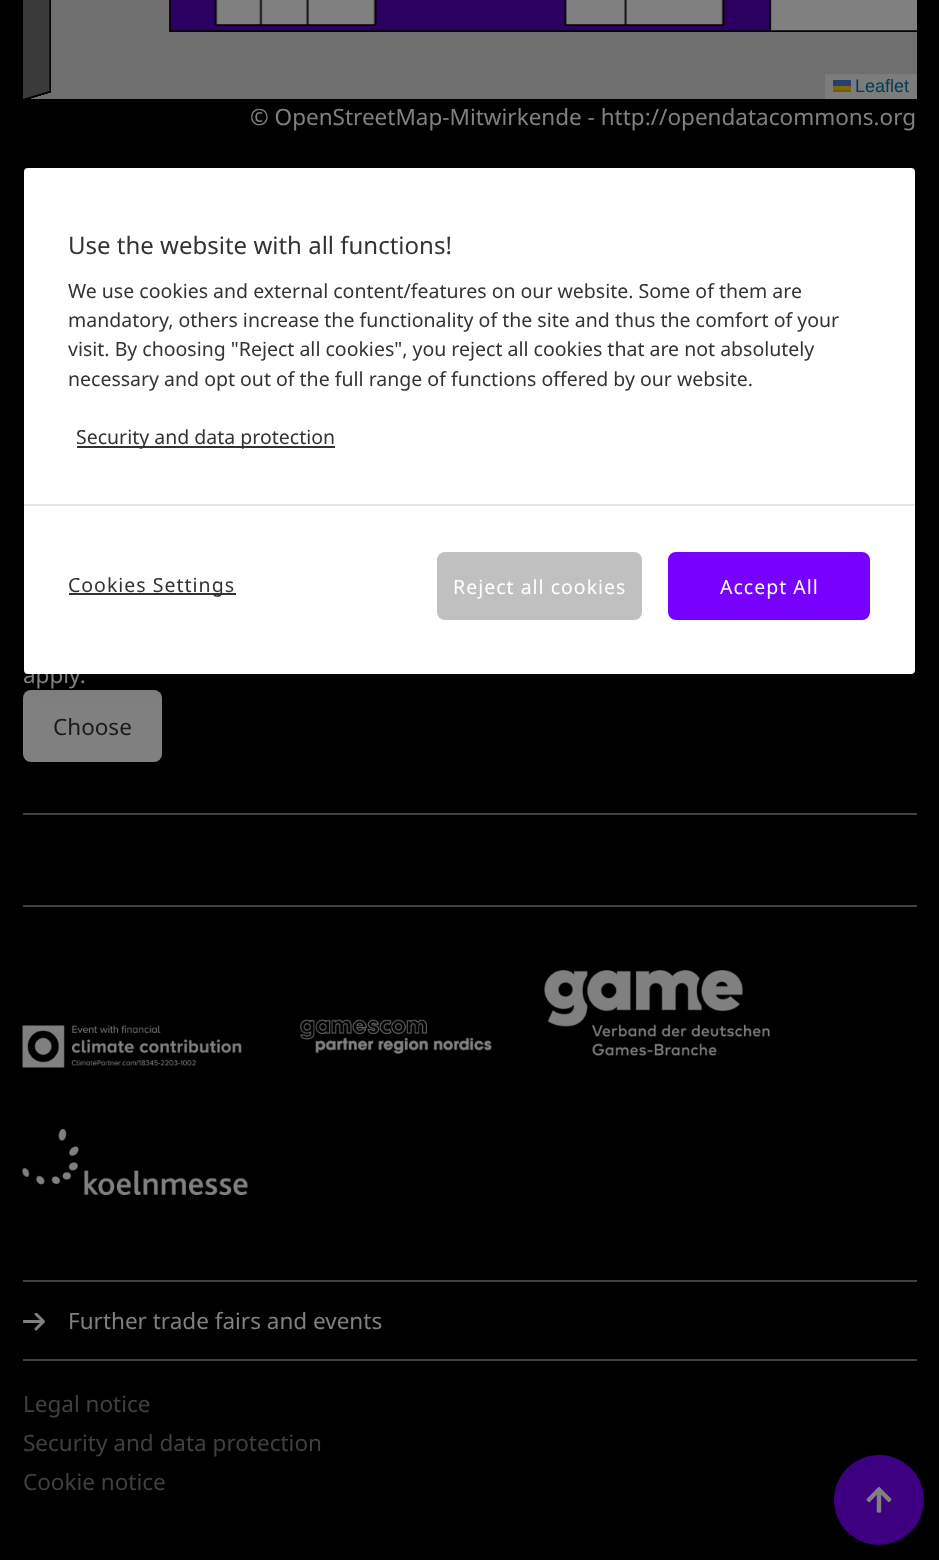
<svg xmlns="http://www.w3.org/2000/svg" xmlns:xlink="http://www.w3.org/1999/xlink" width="939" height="1560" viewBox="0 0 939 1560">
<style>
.cls-1{font:18px Liberation Sans;fill:#003c54}
.cls-2{font:22.5px Noto Sans;fill:#808080}
.cls-3{font:19.5px Noto Sans;letter-spacing:1px;fill:#333333}
.cls-4{font:19.5px Noto Sans;letter-spacing:1px;fill:#ffffff}
.cls-5{font:19.5px Noto Sans;fill:#333333}
.cls-6{font:24px Noto Sans;fill:#333333}
.cls-7{font:22.5px Noto Sans;fill:#1a1a1a}
.cls-8{font:22.5px Noto Sans;fill:#404040}
</style>
<rect width="100%" height="100%" fill="#000000"/>
<rect fill="#6f6f6f" x="30" y="0" width="887" height="99"/>
<image xlink:href="image0.png" x="23" y="0" width="28" height="99"/>
<image xlink:href="image1.png" x="169" y="0" width="748" height="32"/>
<image xlink:href="image2.png" x="214" y="0" width="511" height="26"/>
<rect fill="#7c7c7c" x="825" y="74" width="92" height="25"/>
<rect fill="#263e71" x="833" y="80" width="18" height="6"/>
<rect fill="#806b00" x="833" y="86" width="18" height="4"/>
<rect fill="#705e00" x="833" y="90" width="18" height="2"/>
<rect fill="#808080" x="23" y="690" width="139" height="72" rx="8"/>
<rect fill="#000000" fill-opacity="0.2" filter="blur(13.5px)" x="24" y="168" width="891" height="506" rx="4"/>
<rect fill="#404040" x="23" y="813" width="894" height="2"/>
<rect fill="#404040" x="23" y="905" width="894" height="2"/>
<image xlink:href="image3.png" x="22" y="1025" width="220" height="43"/>
<image xlink:href="image4.png" x="300" y="1019" width="192" height="35"/>
<image xlink:href="image5.png" x="544" y="970" width="226" height="86"/>
<image xlink:href="image6.png" x="22" y="1129" width="226" height="66"/>
<rect fill="#404040" x="23" y="1280" width="894" height="2"/>
<image xlink:href="image7.png" x="23" y="1313" width="22" height="18"/>
<rect fill="#404040" x="23" y="1359" width="894" height="2"/>
<circle fill="#3c0080" cx="879" cy="1500" r="45"/>
<image xlink:href="image8.png" x="866" y="1487" width="26" height="26"/>
<text class="cls-1" x="855" y="92">Leaflet</text>
<text class="cls-2" x="250" y="125">© OpenStreetMap-Mitwirkende - http://opendatacommons.org</text>
<text class="cls-2" x="23" y="683">apply.</text>
<rect fill="#ffffff" x="24" y="168" width="891" height="506" rx="4"/>
<rect fill="#333333" x="69" y="593" width="167" height="2"/>
<text class="cls-3" x="68" y="592">Cookies Settings</text>
<rect fill="#7800ff" stroke="#7800ff" stroke-width="2" x="669" y="553" width="200" height="66" rx="7"/>
<text class="cls-4" x="720" y="594">Accept All</text>
<rect fill="#c0c0c0" x="437" y="552" width="205" height="68" rx="8"/>
<text class="cls-4" x="453" y="594">Reject all cookies</text>
<rect fill="#e5e5e5" x="24" y="504" width="891" height="2"/>
<rect fill="#333333" x="77" y="446" width="258" height="2"/>
<text class="cls-5" x="76" y="444">Security and data protection</text>
<text class="cls-5" x="68" y="386">necessary and opt out of the full range of functions offered by our website.</text>
<text class="cls-5" x="68" y="356">visit. By choosing "Reject all cookies", you reject all cookies that are not absolutely</text>
<text class="cls-5" x="68" y="327">mandatory, others increase the functionality of the site and thus the comfort of your</text>
<text class="cls-5" x="68" y="298">We use cookies and external content/features on our website. Some of them are</text>
<text class="cls-6" x="68" y="254">Use the website with all functions!</text>
<text class="cls-7" x="53" y="735">Choose</text>
<text class="cls-2" x="68" y="1329">Further trade fairs and events</text>
<text class="cls-8"><tspan x="23" y="1412">Legal notice</tspan><tspan x="23" y="1451">Security and data protection</tspan><tspan x="23" y="1490">Cookie notice</tspan></text>
</svg>
